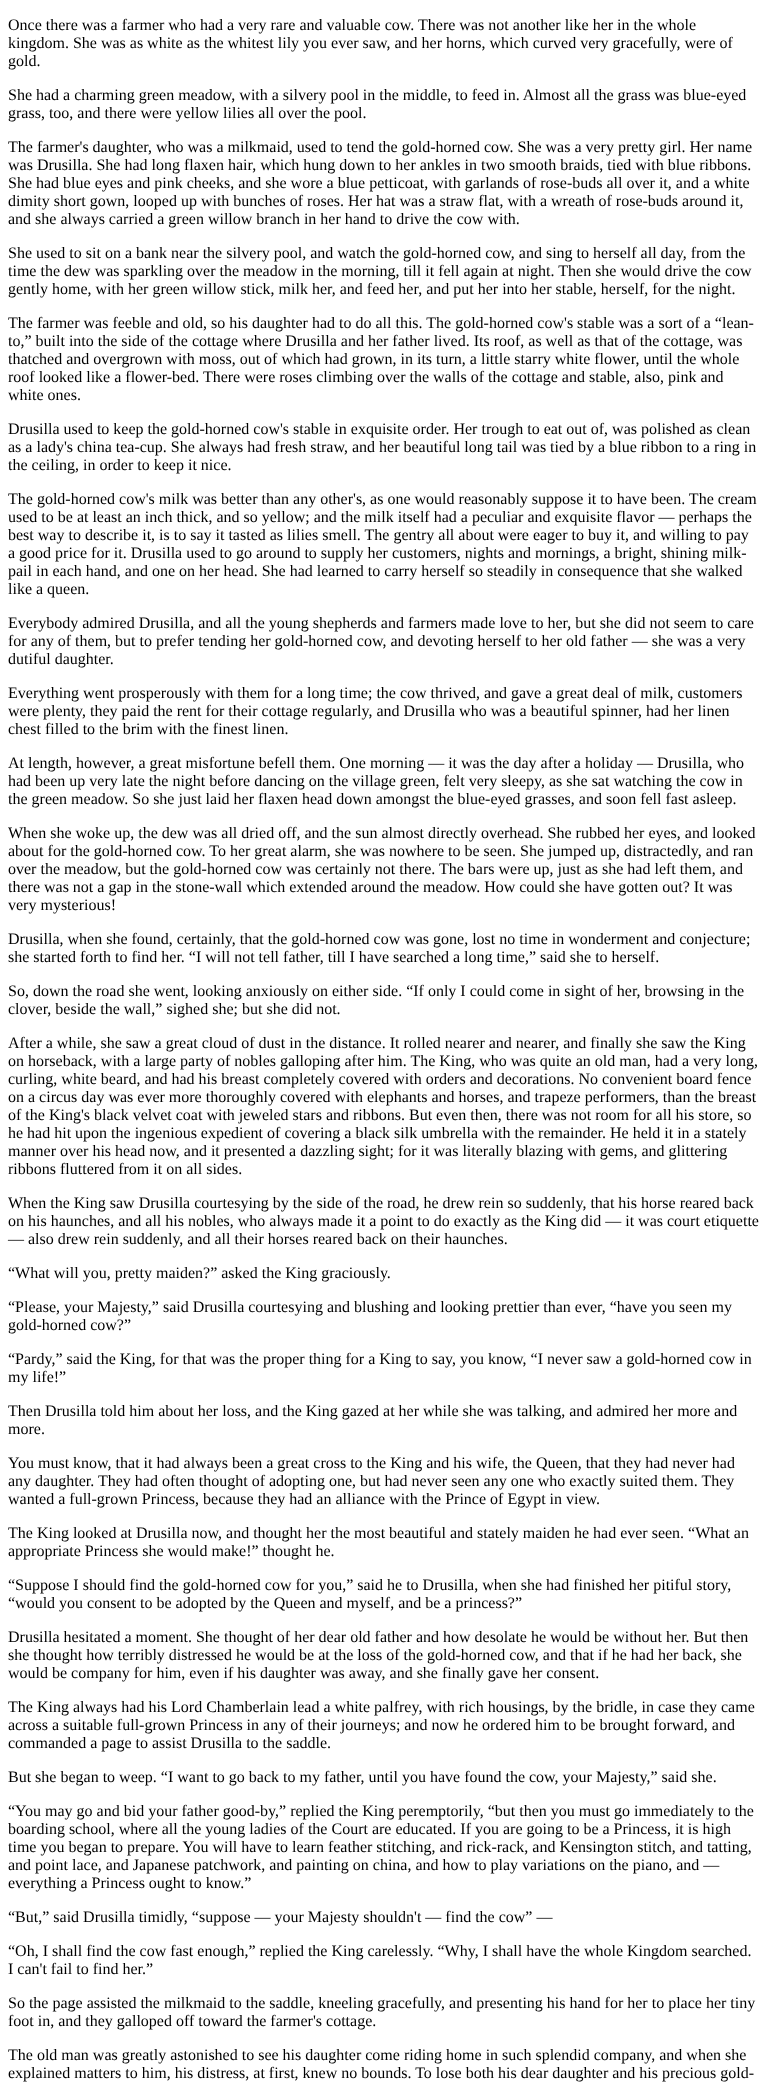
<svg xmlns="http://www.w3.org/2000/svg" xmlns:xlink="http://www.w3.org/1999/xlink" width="767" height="2086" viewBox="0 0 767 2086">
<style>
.cls-1{font:16px Liberation Serif;fill:#000000}
</style>
<rect width="100%" height="100%" fill="#ffffff"/>
<text class="cls-1"><tspan x="8" y="30">Once there was a farmer who had a very rare and valuable cow. There was not another like her in the whole</tspan><tspan x="8" y="48">kingdom. She was as white as the whitest lily you ever saw, and her horns, which curved very gracefully, were of</tspan><tspan x="8" y="66">gold.</tspan></text>
<text class="cls-1"><tspan x="8" y="100">She had a charming green meadow, with a silvery pool in the middle, to feed in. Almost all the grass was blue-eyed</tspan><tspan x="8" y="118">grass, too, and there were yellow lilies all over the pool.</tspan></text>
<text class="cls-1"><tspan x="8" y="152">The farmer's daughter, who was a milkmaid, used to tend the gold-horned cow. She was a very pretty girl. Her name</tspan><tspan x="8" y="170">was Drusilla. She had long flaxen hair, which hung down to her ankles in two smooth braids, tied with blue ribbons.</tspan><tspan x="8" y="188">She had blue eyes and pink cheeks, and she wore a blue petticoat, with garlands of rose-buds all over it, and a white</tspan><tspan x="8" y="206">dimity short gown, looped up with bunches of roses. Her hat was a straw flat, with a wreath of rose-buds around it,</tspan><tspan x="8" y="224">and she always carried a green willow branch in her hand to drive the cow with.</tspan></text>
<text class="cls-1"><tspan x="8" y="258">She used to sit on a bank near the silvery pool, and watch the gold-horned cow, and sing to herself all day, from the</tspan><tspan x="8" y="276">time the dew was sparkling over the meadow in the morning, till it fell again at night. Then she would drive the cow</tspan><tspan x="8" y="294">gently home, with her green willow stick, milk her, and feed her, and put her into her stable, herself, for the night.</tspan></text>
<text class="cls-1"><tspan x="8" y="328">The farmer was feeble and old, so his daughter had to do all this. The gold-horned cow's stable was a sort of a “lean-</tspan><tspan x="8" y="346">to,” built into the side of the cottage where Drusilla and her father lived. Its roof, as well as that of the cottage, was</tspan><tspan x="8" y="364">thatched and overgrown with moss, out of which had grown, in its turn, a little starry white flower, until the whole</tspan><tspan x="8" y="382">roof looked like a flower-bed. There were roses climbing over the walls of the cottage and stable, also, pink and</tspan><tspan x="8" y="400">white ones.</tspan></text>
<text class="cls-1"><tspan x="8" y="434">Drusilla used to keep the gold-horned cow's stable in exquisite order. Her trough to eat out of, was polished as clean</tspan><tspan x="8" y="452">as a lady's china tea-cup. She always had fresh straw, and her beautiful long tail was tied by a blue ribbon to a ring in</tspan><tspan x="8" y="470">the ceiling, in order to keep it nice.</tspan></text>
<text class="cls-1"><tspan x="8" y="504">The gold-horned cow's milk was better than any other's, as one would reasonably suppose it to have been. The cream</tspan><tspan x="8" y="522">used to be at least an inch thick, and so yellow; and the milk itself had a peculiar and exquisite flavor — perhaps the</tspan><tspan x="8" y="540">best way to describe it, is to say it tasted as lilies smell. The gentry all about were eager to buy it, and willing to pay</tspan><tspan x="8" y="558">a good price for it. Drusilla used to go around to supply her customers, nights and mornings, a bright, shining milk-</tspan><tspan x="8" y="576">pail in each hand, and one on her head. She had learned to carry herself so steadily in consequence that she walked</tspan><tspan x="8" y="594">like a queen.</tspan></text>
<text class="cls-1"><tspan x="8" y="628">Everybody admired Drusilla, and all the young shepherds and farmers made love to her, but she did not seem to care</tspan><tspan x="8" y="646">for any of them, but to prefer tending her gold-horned cow, and devoting herself to her old father — she was a very</tspan><tspan x="8" y="664">dutiful daughter.</tspan></text>
<text class="cls-1"><tspan x="8" y="698">Everything went prosperously with them for a long time; the cow thrived, and gave a great deal of milk, customers</tspan><tspan x="8" y="716">were plenty, they paid the rent for their cottage regularly, and Drusilla who was a beautiful spinner, had her linen</tspan><tspan x="8" y="734">chest filled to the brim with the finest linen.</tspan></text>
<text class="cls-1"><tspan x="8" y="768">At length, however, a great misfortune befell them. One morning — it was the day after a holiday — Drusilla, who</tspan><tspan x="8" y="786">had been up very late the night before dancing on the village green, felt very sleepy, as she sat watching the cow in</tspan><tspan x="8" y="804">the green meadow. So she just laid her flaxen head down amongst the blue-eyed grasses, and soon fell fast asleep.</tspan></text>
<text class="cls-1"><tspan x="8" y="838">When she woke up, the dew was all dried off, and the sun almost directly overhead. She rubbed her eyes, and looked</tspan><tspan x="8" y="856">about for the gold-horned cow. To her great alarm, she was nowhere to be seen. She jumped up, distractedly, and ran</tspan><tspan x="8" y="874">over the meadow, but the gold-horned cow was certainly not there. The bars were up, just as she had left them, and</tspan><tspan x="8" y="892">there was not a gap in the stone-wall which extended around the meadow. How could she have gotten out? It was</tspan><tspan x="8" y="910">very mysterious!</tspan></text>
<text class="cls-1"><tspan x="8" y="944">Drusilla, when she found, certainly, that the gold-horned cow was gone, lost no time in wonderment and conjecture;</tspan><tspan x="8" y="962">she started forth to find her. “I will not tell father, till I have searched a long time,” said she to herself.</tspan></text>
<text class="cls-1"><tspan x="8" y="996">So, down the road she went, looking anxiously on either side. “If only I could come in sight of her, browsing in the</tspan><tspan x="8" y="1014">clover, beside the wall,” sighed she; but she did not.</tspan></text>
<text class="cls-1"><tspan x="8" y="1048">After a while, she saw a great cloud of dust in the distance. It rolled nearer and nearer, and finally she saw the King</tspan><tspan x="8" y="1066">on horseback, with a large party of nobles galloping after him. The King, who was quite an old man, had a very long,</tspan><tspan x="8" y="1084">curling, white beard, and had his breast completely covered with orders and decorations. No convenient board fence</tspan><tspan x="8" y="1102">on a circus day was ever more thoroughly covered with elephants and horses, and trapeze performers, than the breast</tspan><tspan x="8" y="1120">of the King's black velvet coat with jeweled stars and ribbons. But even then, there was not room for all his store, so</tspan><tspan x="8" y="1138">he had hit upon the ingenious expedient of covering a black silk umbrella with the remainder. He held it in a stately</tspan><tspan x="8" y="1156">manner over his head now, and it presented a dazzling sight; for it was literally blazing with gems, and glittering</tspan><tspan x="8" y="1174">ribbons fluttered from it on all sides.</tspan></text>
<text class="cls-1"><tspan x="8" y="1208">When the King saw Drusilla courtesying by the side of the road, he drew rein so suddenly, that his horse reared back</tspan><tspan x="8" y="1226">on his haunches, and all his nobles, who always made it a point to do exactly as the King did — it was court etiquette</tspan><tspan x="8" y="1244">— also drew rein suddenly, and all their horses reared back on their haunches.</tspan></text>
<text class="cls-1" x="8" y="1278">“What will you, pretty maiden?” asked the King graciously.</text>
<text class="cls-1"><tspan x="8" y="1312">“Please, your Majesty,” said Drusilla courtesying and blushing and looking prettier than ever, “have you seen my</tspan><tspan x="8" y="1330">gold-horned cow?”</tspan></text>
<text class="cls-1"><tspan x="8" y="1364">“Pardy,” said the King, for that was the proper thing for a King to say, you know, “I never saw a gold-horned cow in</tspan><tspan x="8" y="1382">my life!”</tspan></text>
<text class="cls-1"><tspan x="8" y="1416">Then Drusilla told him about her loss, and the King gazed at her while she was talking, and admired her more and</tspan><tspan x="8" y="1434">more.</tspan></text>
<text class="cls-1"><tspan x="8" y="1468">You must know, that it had always been a great cross to the King and his wife, the Queen, that they had never had</tspan><tspan x="8" y="1486">any daughter. They had often thought of adopting one, but had never seen any one who exactly suited them. They</tspan><tspan x="8" y="1504">wanted a full-grown Princess, because they had an alliance with the Prince of Egypt in view.</tspan></text>
<text class="cls-1"><tspan x="8" y="1538">The King looked at Drusilla now, and thought her the most beautiful and stately maiden he had ever seen. “What an</tspan><tspan x="8" y="1556">appropriate Princess she would make!” thought he.</tspan></text>
<text class="cls-1"><tspan x="8" y="1590">“Suppose I should find the gold-horned cow for you,” said he to Drusilla, when she had finished her pitiful story,</tspan><tspan x="8" y="1608">“would you consent to be adopted by the Queen and myself, and be a princess?”</tspan></text>
<text class="cls-1"><tspan x="8" y="1642">Drusilla hesitated a moment. She thought of her dear old father and how desolate he would be without her. But then</tspan><tspan x="8" y="1660">she thought how terribly distressed he would be at the loss of the gold-horned cow, and that if he had her back, she</tspan><tspan x="8" y="1678">would be company for him, even if his daughter was away, and she finally gave her consent.</tspan></text>
<text class="cls-1"><tspan x="8" y="1712">The King always had his Lord Chamberlain lead a white palfrey, with rich housings, by the bridle, in case they came</tspan><tspan x="8" y="1730">across a suitable full-grown Princess in any of their journeys; and now he ordered him to be brought forward, and</tspan><tspan x="8" y="1748">commanded a page to assist Drusilla to the saddle.</tspan></text>
<text class="cls-1" x="8" y="1782">But she began to weep. “I want to go back to my father, until you have found the cow, your Majesty,” said she.</text>
<text class="cls-1"><tspan x="8" y="1816">“You may go and bid your father good-by,” replied the King peremptorily, “but then you must go immediately to the</tspan><tspan x="8" y="1834">boarding school, where all the young ladies of the Court are educated. If you are going to be a Princess, it is high</tspan><tspan x="8" y="1852">time you began to prepare. You will have to learn feather stitching, and rick-rack, and Kensington stitch, and tatting,</tspan><tspan x="8" y="1870">and point lace, and Japanese patchwork, and painting on china, and how to play variations on the piano, and —</tspan><tspan x="8" y="1888">everything a Princess ought to know.”</tspan></text>
<text class="cls-1" x="8" y="1922">“But,” said Drusilla timidly, “suppose — your Majesty shouldn't — find the cow” —</text>
<text class="cls-1"><tspan x="8" y="1956">“Oh, I shall find the cow fast enough,” replied the King carelessly. “Why, I shall have the whole Kingdom searched.</tspan><tspan x="8" y="1974">I can't fail to find her.”</tspan></text>
<text class="cls-1"><tspan x="8" y="2008">So the page assisted the milkmaid to the saddle, kneeling gracefully, and presenting his hand for her to place her tiny</tspan><tspan x="8" y="2026">foot in, and they galloped off toward the farmer's cottage.</tspan></text>
<text class="cls-1"><tspan x="8" y="2060">The old man was greatly astonished to see his daughter come riding home in such splendid company, and when she</tspan><tspan x="8" y="2078">explained matters to him, his distress, at first, knew no bounds. To lose both his dear daughter and his precious gold-</tspan></text>
</svg>
